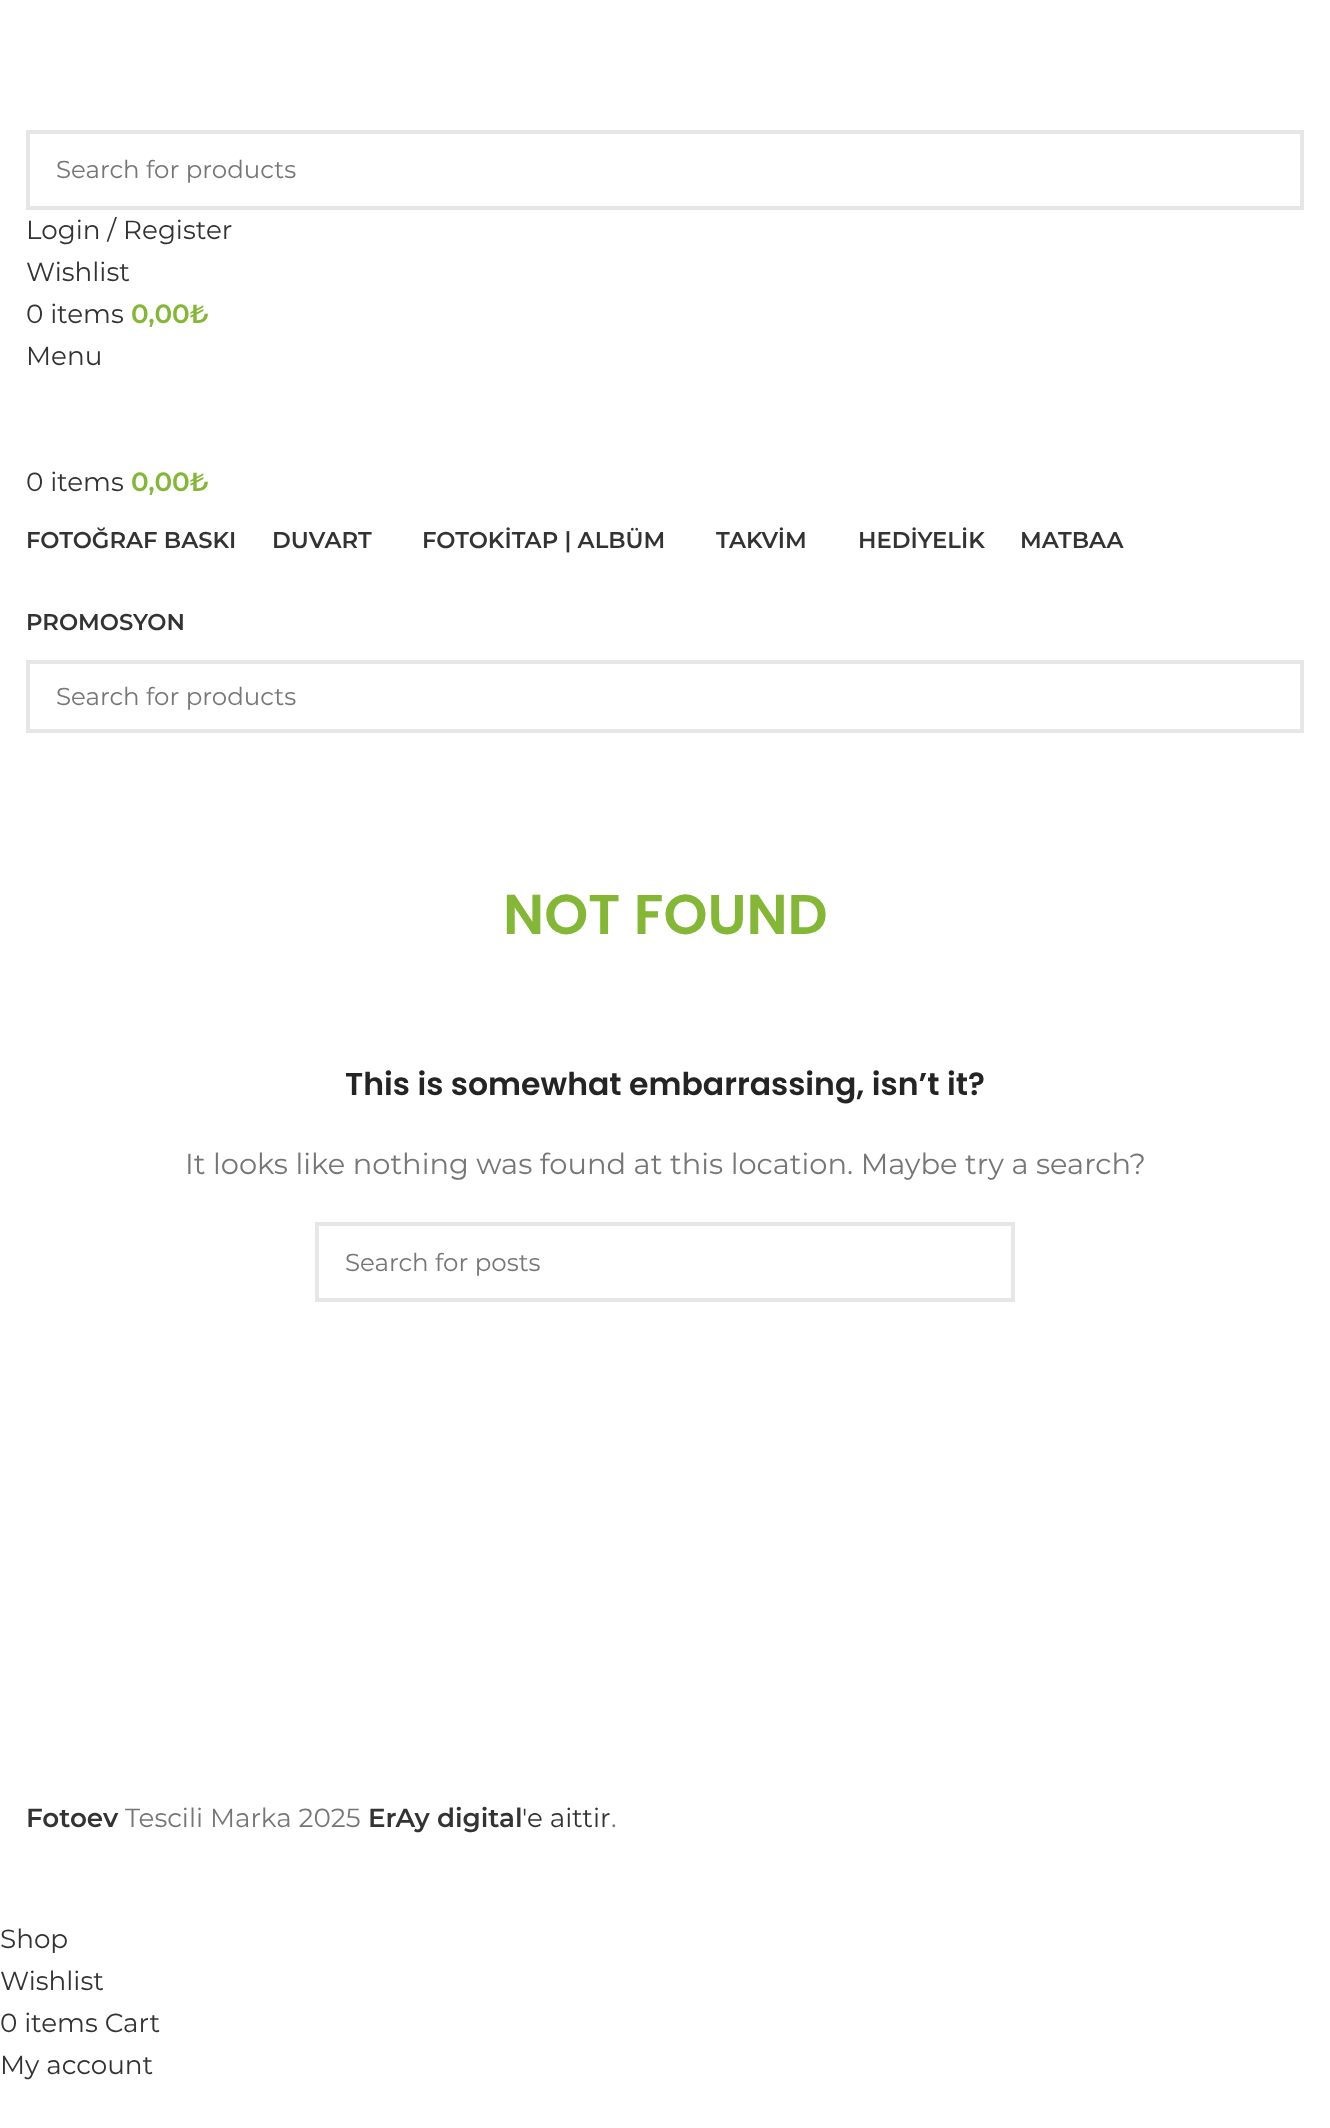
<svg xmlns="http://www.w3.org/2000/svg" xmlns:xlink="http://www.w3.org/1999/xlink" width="1330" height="2128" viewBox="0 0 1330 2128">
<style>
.cls-1{font:24.5px Montserrat;fill:#767676}
.cls-2{font:26.25px Montserrat;fill:#333333}
.cls-3{font:600 26.25px Montserrat;fill:#83b735}
.cls-4{font:600 22.75px Montserrat;fill:#333333}
.cls-5{font:600 56px Poppins;fill:#83b735}
.cls-6{font:600 31.5px Poppins;fill:#242424}
.cls-7{font:28.9px Montserrat;fill:#767676}
.cls-8{font:600 26.25px Montserrat;fill:#333333}
.cls-9{font:26.25px Montserrat;fill:#767676}
</style>
<rect width="100%" height="100%" fill="#ffffff"/>
<rect fill="none" stroke="#e6e6e6" stroke-width="4" x="28" y="132" width="1274" height="76"/>
<rect fill="none" stroke="#e6e6e6" stroke-width="4" x="28" y="662" width="1274" height="69"/>
<rect fill="none" stroke="#e6e6e6" stroke-width="4" x="317" y="1224" width="696" height="76"/>
<text class="cls-1" x="56" y="178">Search for products</text>
<text class="cls-2"><tspan x="26" y="239">Login / Register</tspan><tspan x="26" y="281">Wishlist</tspan><tspan x="26" y="323">0 items</tspan></text>
<text class="cls-3" x="131" y="323">0,00₺</text>
<text class="cls-2" x="26" y="365">Menu</text>
<text class="cls-2" x="26" y="491">0 items</text>
<text class="cls-3" x="131" y="491">0,00₺</text>
<text class="cls-4" x="26" y="548">FOTOĞRAF BASKI</text>
<text class="cls-4" x="272" y="548">DUVART</text>
<text class="cls-4" x="422" y="548">FOTOKİTAP | ALBÜM</text>
<text class="cls-4" x="716" y="548">TAKVİM</text>
<text class="cls-4" x="858" y="548">HEDİYELİK</text>
<text class="cls-4" x="1020" y="548">MATBAA</text>
<text class="cls-4" x="26" y="630">PROMOSYON</text>
<text class="cls-1" x="56" y="705">Search for products</text>
<text class="cls-5" x="503" y="934">NOT FOUND</text>
<text class="cls-6" x="345" y="1095">This is somewhat embarrassing, isn’t it?</text>
<text class="cls-7" x="185" y="1174">It looks like nothing was found at this location. Maybe try a search?</text>
<text class="cls-1" x="345" y="1271">Search for posts</text>
<text class="cls-8" x="26" y="1827">Fotoev</text>
<text class="cls-9" x="125" y="1827">Tescili Marka 2025</text>
<text class="cls-8" x="368" y="1827">ErAy digital</text>
<text class="cls-2" x="522" y="1827">'e aittir</text>
<text class="cls-9" x="611" y="1827">.</text>
<text class="cls-2"><tspan x="0" y="1948">Shop</tspan><tspan x="0" y="1990">Wishlist</tspan><tspan x="0" y="2032">0 items Cart</tspan><tspan x="0" y="2074">My account</tspan></text>
</svg>
